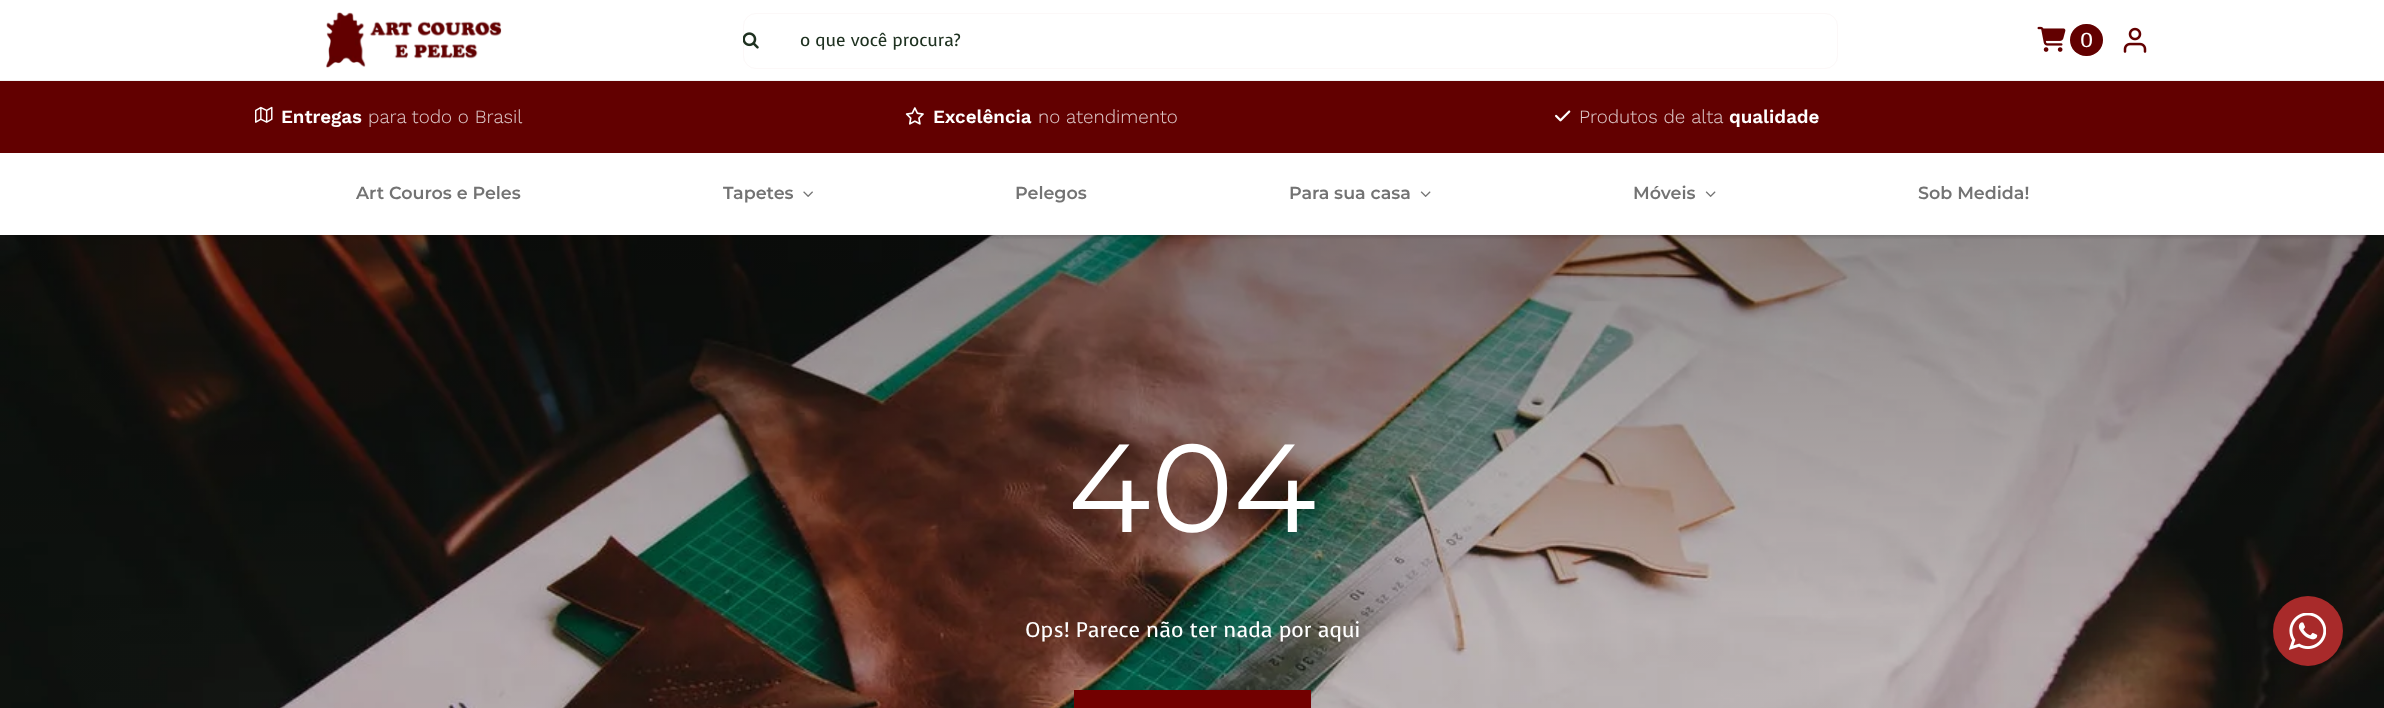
<svg xmlns="http://www.w3.org/2000/svg" xmlns:xlink="http://www.w3.org/1999/xlink" width="2384" height="708" viewBox="0 0 2384 708">
<style>
.cls-1{font:17.5px Voces;fill:#1e3120}
.cls-2{font:20px Voces;fill:#ffffff}
.cls-3{font:600 18.75px Work Sans;fill:#ffffff}
.cls-4{font:300 18.75px Work Sans;fill:#e0cccc}
.cls-5{font:600 17.5px Montserrat;fill:#737373}
.cls-6{font:125px Montserrat;fill:#ffffff}
.cls-7{font:21.25px Voces;fill:#ffffff}
</style>
<defs>
<clipPath id="clip1"><rect x="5" y="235" width="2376" height="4"/></clipPath>
</defs>
<rect width="100%" height="100%" fill="#ffffff"/>
<rect fill="#f2f2f2" x="0" y="80" width="2384" height="1"/>
<image xlink:href="image0.png" x="326" y="12" width="176" height="56"/>
<rect fill="none" stroke="#fcf8f8" x="743.5" y="13.5" width="1094" height="55" rx="12.5"/>
<image xlink:href="image1.png" x="743" y="32" width="16" height="17"/>
<image xlink:href="image2.png" x="2037" y="26" width="29" height="26"/>
<rect fill="#620000" x="2070" y="24" width="33" height="32" rx="16"/>
<image xlink:href="image3.png" x="2123" y="27" width="24" height="26"/>
<rect fill="#620000" x="0" y="81" width="2384" height="72"/>
<image xlink:href="image4.png" x="255" y="106" width="18" height="17"/>
<image xlink:href="image5.png" x="905" y="107" width="19" height="18"/>
<image xlink:href="image6.png" x="1555" y="110" width="16" height="12"/>
<image xlink:href="image9.png" x="0" y="235" width="2384" height="473"/>
<g clip-path="url(#clip1)">
<rect fill="#000000" fill-opacity="0.4" filter="blur(3px)" x="8" y="166" width="2370" height="68"/>
</g>
<image xlink:href="image7.png" x="803" y="191" width="10" height="6"/>
<image xlink:href="image8.png" x="1420" y="191" width="11" height="6"/>
<image xlink:href="image8.png" x="1705" y="191" width="11" height="6"/>
<rect fill="#720000" x="1074" y="690" width="237" height="18"/>
<circle fill="#a82a2a" cx="2308" cy="631" r="35"/>
<image xlink:href="image10.png" x="2289" y="613" width="37" height="37"/>
<text class="cls-1" x="800" y="46">o que você procura?</text>
<text class="cls-2" x="2080" y="47">0</text>
<text class="cls-3" x="281" y="123">Entregas</text>
<text class="cls-4" x="368" y="123">para todo o Brasil</text>
<text class="cls-3" x="933" y="123">Excelência</text>
<text class="cls-4" x="1038" y="123">no atendimento</text>
<text class="cls-4" x="1579" y="123">Produtos de alta</text>
<text class="cls-3" x="1729" y="123">qualidade</text>
<text class="cls-5" x="356" y="199">Art Couros e Peles</text>
<text class="cls-5" x="723" y="199">Tapetes</text>
<text class="cls-5" x="1015" y="199">Pelegos</text>
<text class="cls-5" x="1289" y="199">Para sua casa</text>
<text class="cls-5" x="1633" y="199">Móveis</text>
<text class="cls-5" x="1918" y="199">Sob Medida!</text>
<text class="cls-6" x="1068" y="532">404</text>
<text class="cls-7" x="1025" y="637">Ops! Parece não ter nada por aqui</text>
</svg>
